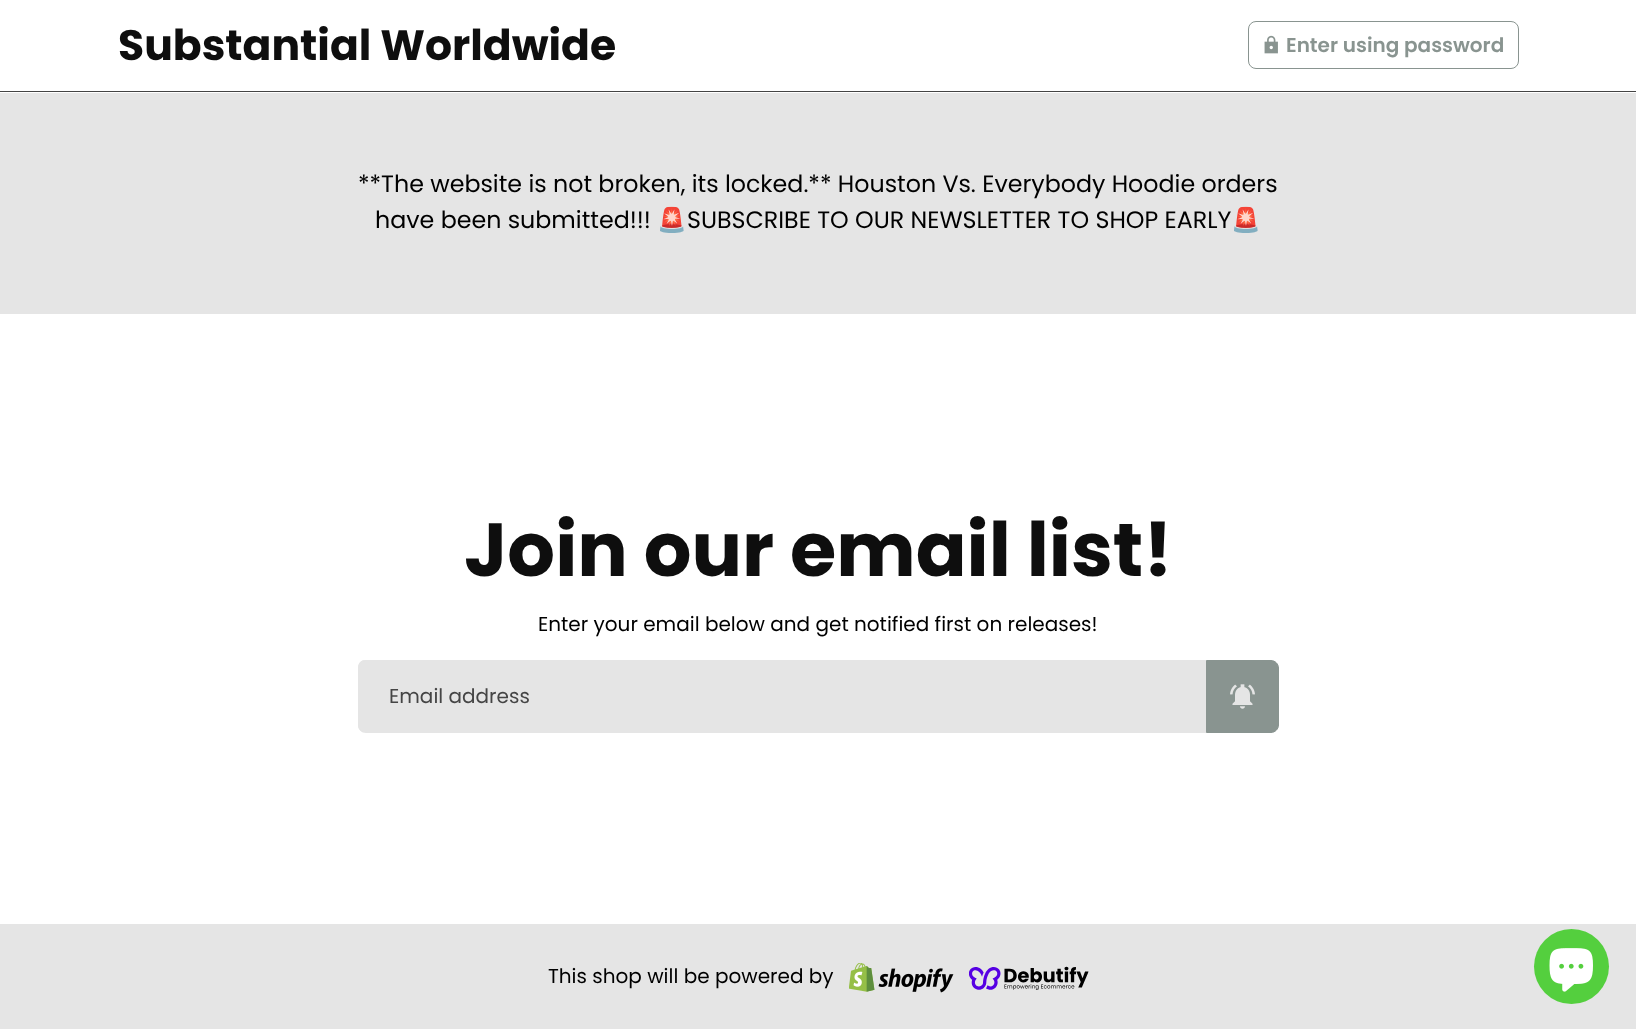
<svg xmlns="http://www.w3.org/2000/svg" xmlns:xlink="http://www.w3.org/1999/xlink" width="1636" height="1029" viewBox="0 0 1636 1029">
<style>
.cls-1{font:bold 42.5px Poppins;fill:#0e0e0e}
.cls-2{font:600 20px Poppins;fill:#899490}
.cls-3{font:23.75px Poppins;fill:#000000}
.cls-4{font:23.75px Noto Color Emoji;fill:#000000}
.cls-5{font:bold 75px Poppins;fill:#0e0e0e}
.cls-6{font:20px Poppins;fill:#000000}
.cls-7{font:20px Poppins;fill:#454545}
</style>
<rect width="100%" height="100%" fill="#ffffff"/>
<rect fill="#444444" x="0" y="91" width="1636" height="1"/>
<rect fill="none" stroke="#899490" x="1248.5" y="21.5" width="270" height="47" rx="7.5"/>
<image xlink:href="image0.png" x="1264" y="35" width="14" height="19"/>
<rect fill="#e5e5e5" x="0" y="93" width="1636" height="221"/>
<path fill="#e5e5e5" d="M366 660H1206V733H366C361.5 733 358 729.5 358 725V668C358 663.5 361.5 660 366 660Z"/>
<path fill="#e5e5e5" fill-rule="evenodd" d="M365 660H1206V732H365C361 732 358 729 358 725V668C358 663 361 660 365 660ZM365 661H1206V731H365C362 731 359 728 359 725V668C359 664 362 661 365 661Z"/>
<path fill="#899490" stroke="#899490" d="M1206.5 660.5H1271C1275 660.5 1278.5 664 1278.5 668V725C1278.5 729 1275 732.5 1271 732.5H1206.5Z"/>
<image xlink:href="image1.png" x="1230" y="684" width="25" height="25"/>
<rect fill="#e5e5e5" x="0" y="924" width="1636" height="105"/>
<image xlink:href="image2.png" x="849" y="963" width="105" height="30"/>
<image xlink:href="image3.png" x="969" y="966" width="120" height="24"/>
<circle fill="#54cf3e" cx="1571.5" cy="966.5" r="37.5"/>
<image xlink:href="image4.png" x="1549" y="948" width="44" height="44"/>
<text class="cls-1" x="118" y="60">Substantial Worldwide</text>
<text class="cls-2" x="1286" y="52">Enter using password</text>
<text class="cls-3" x="358" y="192">**The website is not broken, its locked.** Houston Vs. Everybody Hoodie orders</text>
<text class="cls-3" x="375" y="228">have been submitted!!!</text>
<text class="cls-4" x="657" y="228">🚨</text>
<text class="cls-3" x="687" y="228">SUBSCRIBE TO OUR NEWSLETTER TO SHOP EARLY</text>
<text class="cls-4" x="1231" y="228">🚨</text>
<text class="cls-5" x="464" y="576">Join our email list!</text>
<text class="cls-6" x="538" y="631">Enter your email below and get notified first on releases!</text>
<text class="cls-7" x="389" y="703">Email address</text>
<text class="cls-6" x="548" y="983">This shop will be powered by</text>
</svg>
